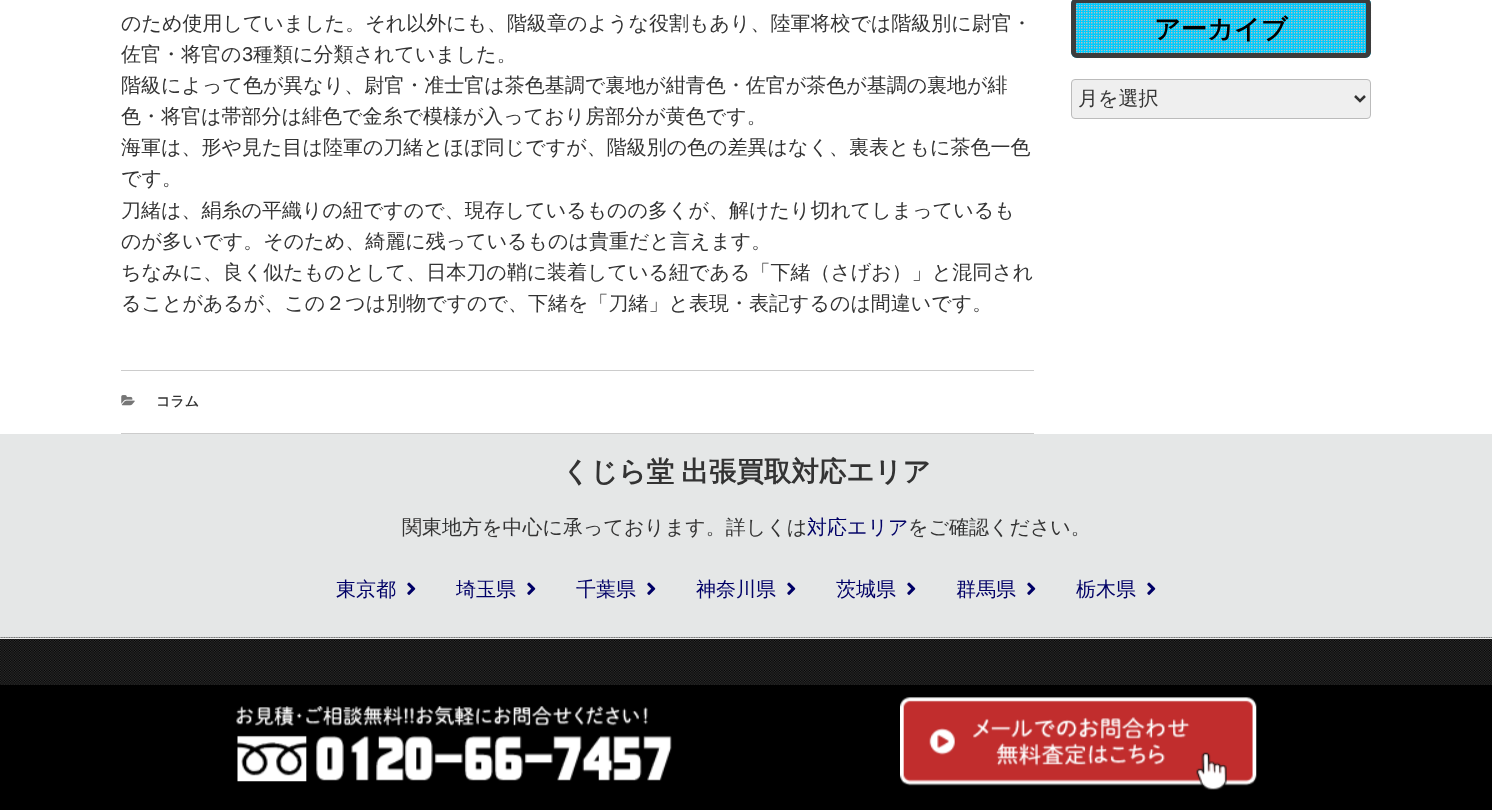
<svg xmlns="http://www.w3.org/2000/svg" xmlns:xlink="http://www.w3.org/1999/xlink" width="1492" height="810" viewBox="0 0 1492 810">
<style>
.cls-1{font:500 20px WenQuanYi Zen Hei;fill:#333333}
.cls-2{font:20px Liberation Sans;fill:#333333}
.cls-3{font:bold 14px WenQuanYi Zen Hei;fill:#333333}
.cls-4{font:bold 26.25px WenQuanYi Zen Hei;fill:#000000}
.cls-5{font:bold 27.5px WenQuanYi Zen Hei;fill:#333333}
.cls-6{font:500 20px WenQuanYi Zen Hei;fill:#000066}
</style>
<rect width="100%" height="100%" fill="#ffffff"/>
<rect fill="#cccccc" x="121" y="370" width="913" height="1"/>
<rect fill="#cccccc" x="121" y="433" width="913" height="1"/>
<image xlink:href="image0.png" x="121" y="395" width="14" height="11"/>
<rect fill="#00ccff" x="1071" y="-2" width="300" height="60" rx="6"/>
<image xlink:href="image1.png" x="1071" y="0" width="301" height="56"/>
<rect fill="none" stroke="#3c3c3c" stroke-width="5" x="1073.5" y="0.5" width="295" height="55" rx="3.5"/>
<rect fill="#efefef" stroke="#bbbbbb" x="1071.5" y="79.5" width="299" height="39" rx="3.5"/>
<path fill="none" stroke="#333333" stroke-width="2.5" d="M1355 96L1360 101L1365 96"/>
<rect fill="#e5e7e7" x="0" y="434" width="1492" height="204"/>
<image xlink:href="image2.png" x="407" y="582" width="9" height="13"/>
<image xlink:href="image2.png" x="527" y="582" width="9" height="13"/>
<image xlink:href="image2.png" x="647" y="582" width="9" height="13"/>
<image xlink:href="image2.png" x="787" y="582" width="9" height="13"/>
<image xlink:href="image2.png" x="907" y="582" width="9" height="13"/>
<image xlink:href="image2.png" x="1027" y="582" width="9" height="13"/>
<image xlink:href="image2.png" x="1147" y="582" width="9" height="13"/>
<rect fill="#333333" x="0" y="639" width="1492" height="46"/>
<image xlink:href="image3.png" x="0" y="637" width="1492" height="48"/>
<rect fill="#eeeeee" x="0" y="638" width="1492" height="1"/>
<rect fill="#000000" x="0" y="685" width="1492" height="125"/>
<image xlink:href="image4.png" x="236" y="706" width="436" height="76"/>
<image xlink:href="image5.png" x="900" y="697" width="357" height="93"/>
<text class="cls-1"><tspan x="121" y="30">のため使用していました。それ以外にも、階級章のような役割もあり、陸軍将校では階級別に尉官・</tspan><tspan x="121" y="61">佐官・将官の</tspan></text>
<text class="cls-2" x="242" y="61">3</text>
<text class="cls-1" x="253" y="61">種類に分類されていました。</text>
<text class="cls-1"><tspan x="121" y="92">階級によって色が異なり、尉官・准士官は茶色基調で裏地が紺青色・佐官が茶色が基調の裏地が緋</tspan><tspan x="121" y="123">色・将官は帯部分は緋色で金糸で模様が入っており房部分が黄色です。</tspan><tspan x="121" y="154">海軍は、形や見た目は陸軍の刀緒とほぼ同じですが、階級別の色の差異はなく、裏表ともに茶色一色</tspan><tspan x="121" y="185">です。</tspan><tspan x="121" y="217">刀緒は、絹糸の平織りの紐ですので、現存しているものの多くが、解けたり切れてしまっているも</tspan><tspan x="121" y="248">のが多いです。そのため、綺麗に残っているものは貴重だと言えます。</tspan><tspan x="121" y="279">ちなみに、良く似たものとして、日本刀の鞘に装着している紐である「下緒（さげお）」と混同され</tspan><tspan x="121" y="310">ることがあるが、この２つは別物ですので、下緒を「刀緒」と表現・表記するのは間違いです。</tspan></text>
<text class="cls-3" x="156" y="406">コラム</text>
<text class="cls-4" x="1154" y="38">アーカイブ</text>
<text class="cls-1" x="1078" y="105">月を選択</text>
<text class="cls-5" x="562" y="481" word-spacing="-1">くじら堂 出張買取対応エリア</text>
<text class="cls-1" x="402" y="534">関東地方を中心に承っております。詳しくは</text>
<text class="cls-6" x="807" y="534">対応エリア</text>
<text class="cls-1" x="908" y="534">をご確認ください。</text>
<text class="cls-6" x="336" y="596">東京都</text>
<text class="cls-6" x="456" y="596">埼玉県</text>
<text class="cls-6" x="576" y="596">千葉県</text>
<text class="cls-6" x="696" y="596">神奈川県</text>
<text class="cls-6" x="836" y="596">茨城県</text>
<text class="cls-6" x="956" y="596">群馬県</text>
<text class="cls-6" x="1076" y="596">栃木県</text>
</svg>
